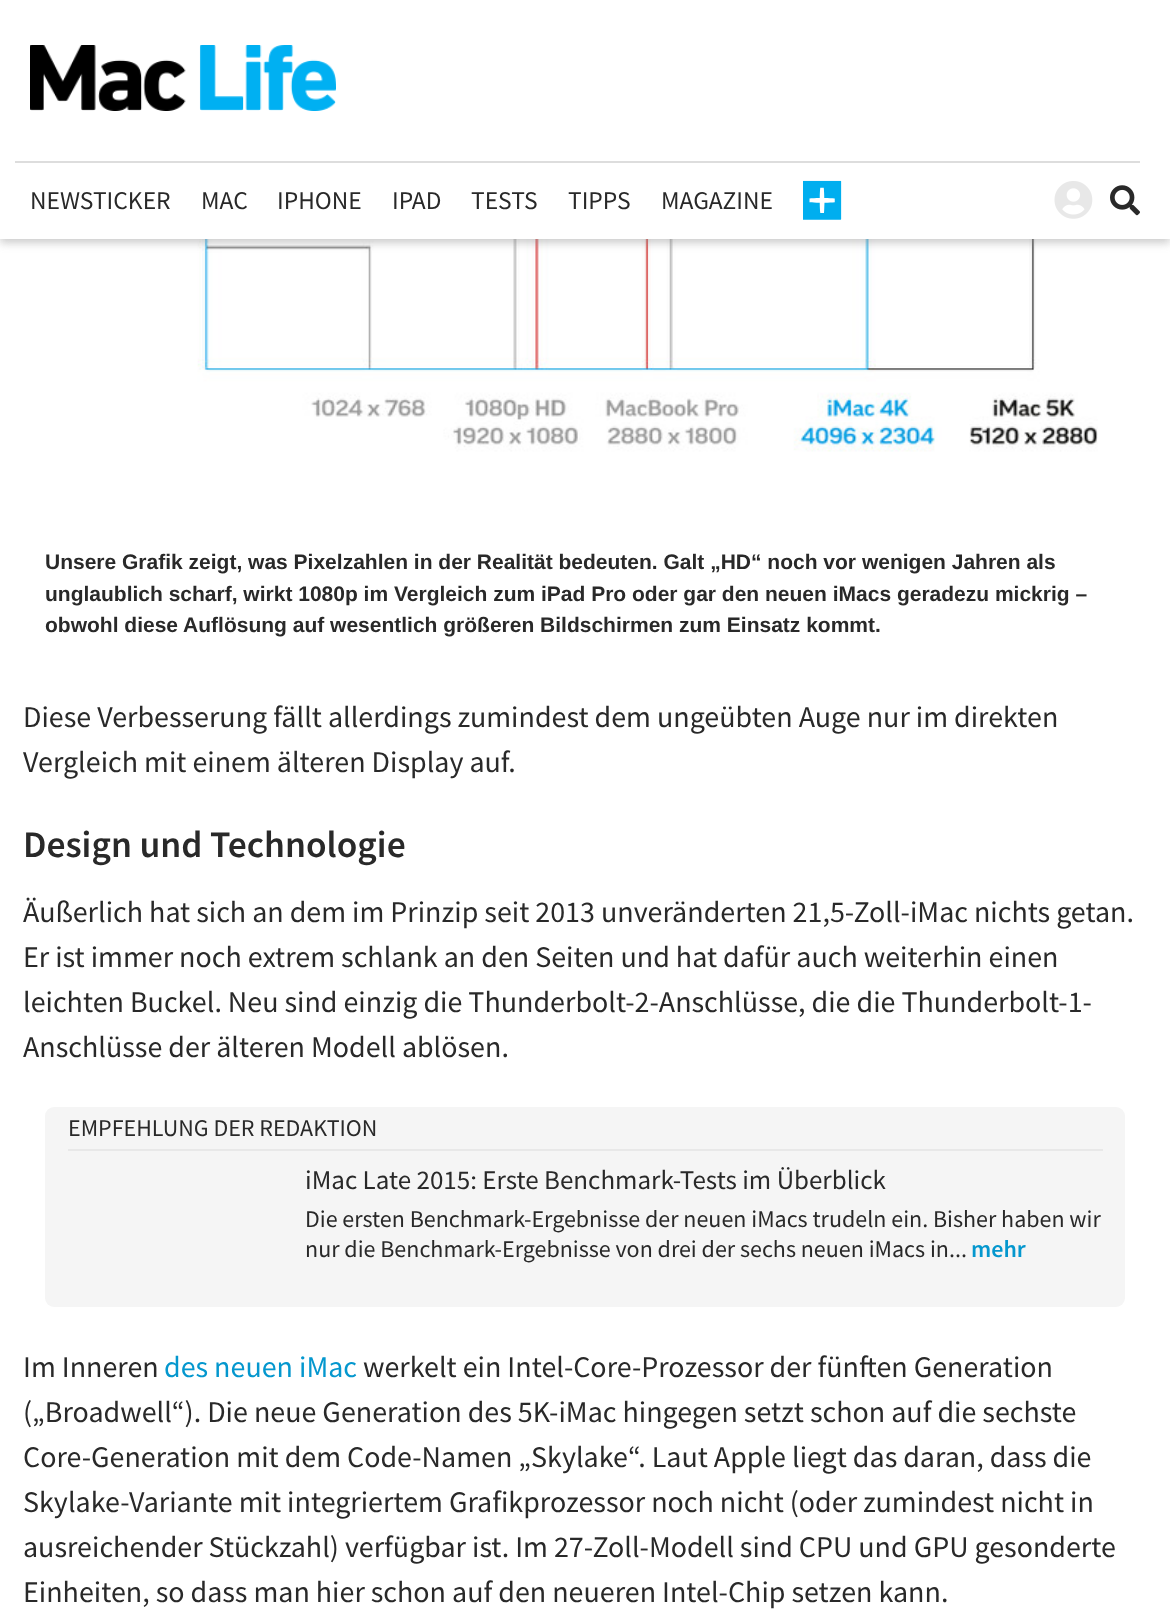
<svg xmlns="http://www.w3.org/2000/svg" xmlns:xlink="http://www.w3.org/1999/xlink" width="1170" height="1614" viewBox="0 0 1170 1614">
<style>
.cls-1{font:25.5px Source Sans Pro;fill:#292929}
.cls-2{font:bold 21px Liberation Sans;fill:#292929}
.cls-3{font:30px Source Sans Pro;fill:#292929}
.cls-4{font:600 37.5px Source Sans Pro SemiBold;fill:#292929}
.cls-5{font:24px Source Sans Pro;fill:#292929}
.cls-6{font:27px Source Sans Pro;fill:#292929}
.cls-7{font:600 24px Source Sans Pro SemiBold;fill:#0497ce}
.cls-8{font:30px Source Sans Pro;fill:#0497ce}
</style>
<rect width="100%" height="100%" fill="#ffffff"/>
<image xlink:href="image4.png" x="46" y="239" width="1052" height="213"/>
<rect fill="#808080" fill-opacity="0.4" filter="blur(4.5px)" x="0" y="5" width="1170" height="238"/>
<rect fill="#ffffff" x="0" y="0" width="1170" height="239"/>
<image xlink:href="image0.png" x="30" y="45" width="306" height="66"/>
<rect fill="#dddddd" x="15" y="161" width="1125" height="2"/>
<image xlink:href="image1.png" x="803" y="180" width="39" height="40"/>
<image xlink:href="image2.png" x="1054" y="181" width="39" height="38"/>
<image xlink:href="image3.png" x="1110" y="185" width="30" height="31"/>
<rect fill="#f5f5f5" x="45" y="1107" width="1080" height="200" rx="9"/>
<rect fill="#e8e8e8" x="68" y="1149" width="1035" height="2"/>
<text class="cls-1" x="30" y="209">NEWSTICKER</text>
<text class="cls-1" x="201" y="209">MAC</text>
<text class="cls-1" x="277" y="209">IPHONE</text>
<text class="cls-1" x="392" y="209">IPAD</text>
<text class="cls-1" x="471" y="209">TESTS</text>
<text class="cls-1" x="568" y="209">TIPPS</text>
<text class="cls-1" x="661" y="209">MAGAZINE</text>
<text class="cls-2"><tspan x="45" y="569">Unsere Grafik zeigt, was Pixelzahlen in der Realität bedeuten. Galt „HD“ noch vor wenigen Jahren als</tspan><tspan x="45" y="601">unglaublich scharf, wirkt 1080p im Vergleich zum iPad Pro oder gar den neuen iMacs geradezu mickrig –</tspan><tspan x="45" y="632">obwohl diese Auflösung auf wesentlich größeren Bildschirmen zum Einsatz kommt.</tspan></text>
<text class="cls-3"><tspan x="23" y="727">Diese Verbesserung fällt allerdings zumindest dem ungeübten Auge nur im direkten</tspan><tspan x="23" y="772">Vergleich mit einem älteren Display auf.</tspan></text>
<text class="cls-4" x="23" y="857">Design und Technologie</text>
<text class="cls-3"><tspan x="23" y="922">Äußerlich hat sich an dem im Prinzip seit 2013 unveränderten 21,5-Zoll-iMac nichts getan.</tspan><tspan x="23" y="967">Er ist immer noch extrem schlank an den Seiten und hat dafür auch weiterhin einen</tspan><tspan x="23" y="1012">leichten Buckel. Neu sind einzig die Thunderbolt-2-Anschlüsse, die die Thunderbolt-1-</tspan><tspan x="23" y="1057">Anschlüsse der älteren Modell ablösen.</tspan></text>
<text class="cls-5" x="68" y="1136">EMPFEHLUNG DER REDAKTION</text>
<text class="cls-6" x="305" y="1189">iMac Late 2015: Erste Benchmark-Tests im Überblick</text>
<text class="cls-5"><tspan x="305" y="1227">Die ersten Benchmark-Ergebnisse der neuen iMacs trudeln ein. Bisher haben wir</tspan><tspan x="305" y="1257">nur die Benchmark-Ergebnisse von drei der sechs neuen iMacs in...</tspan></text>
<text class="cls-7" x="971" y="1257">mehr</text>
<text class="cls-3" x="23" y="1377">Im Inneren</text>
<text class="cls-8" x="164" y="1377">des neuen iMac</text>
<text class="cls-3" x="363" y="1377">werkelt ein Intel-Core-Prozessor der fünften Generation</text>
<text class="cls-3"><tspan x="23" y="1422">(„Broadwell“). Die neue Generation des 5K-iMac hingegen setzt schon auf die sechste</tspan><tspan x="23" y="1467">Core-Generation mit dem Code-Namen „Skylake“. Laut Apple liegt das daran, dass die</tspan><tspan x="23" y="1512">Skylake-Variante mit integriertem Grafikprozessor noch nicht (oder zumindest nicht in</tspan><tspan x="23" y="1557">ausreichender Stückzahl) verfügbar ist. Im 27-Zoll-Modell sind CPU und GPU gesonderte</tspan><tspan x="23" y="1602">Einheiten, so dass man hier schon auf den neueren Intel-Chip setzen kann.</tspan></text>
</svg>
